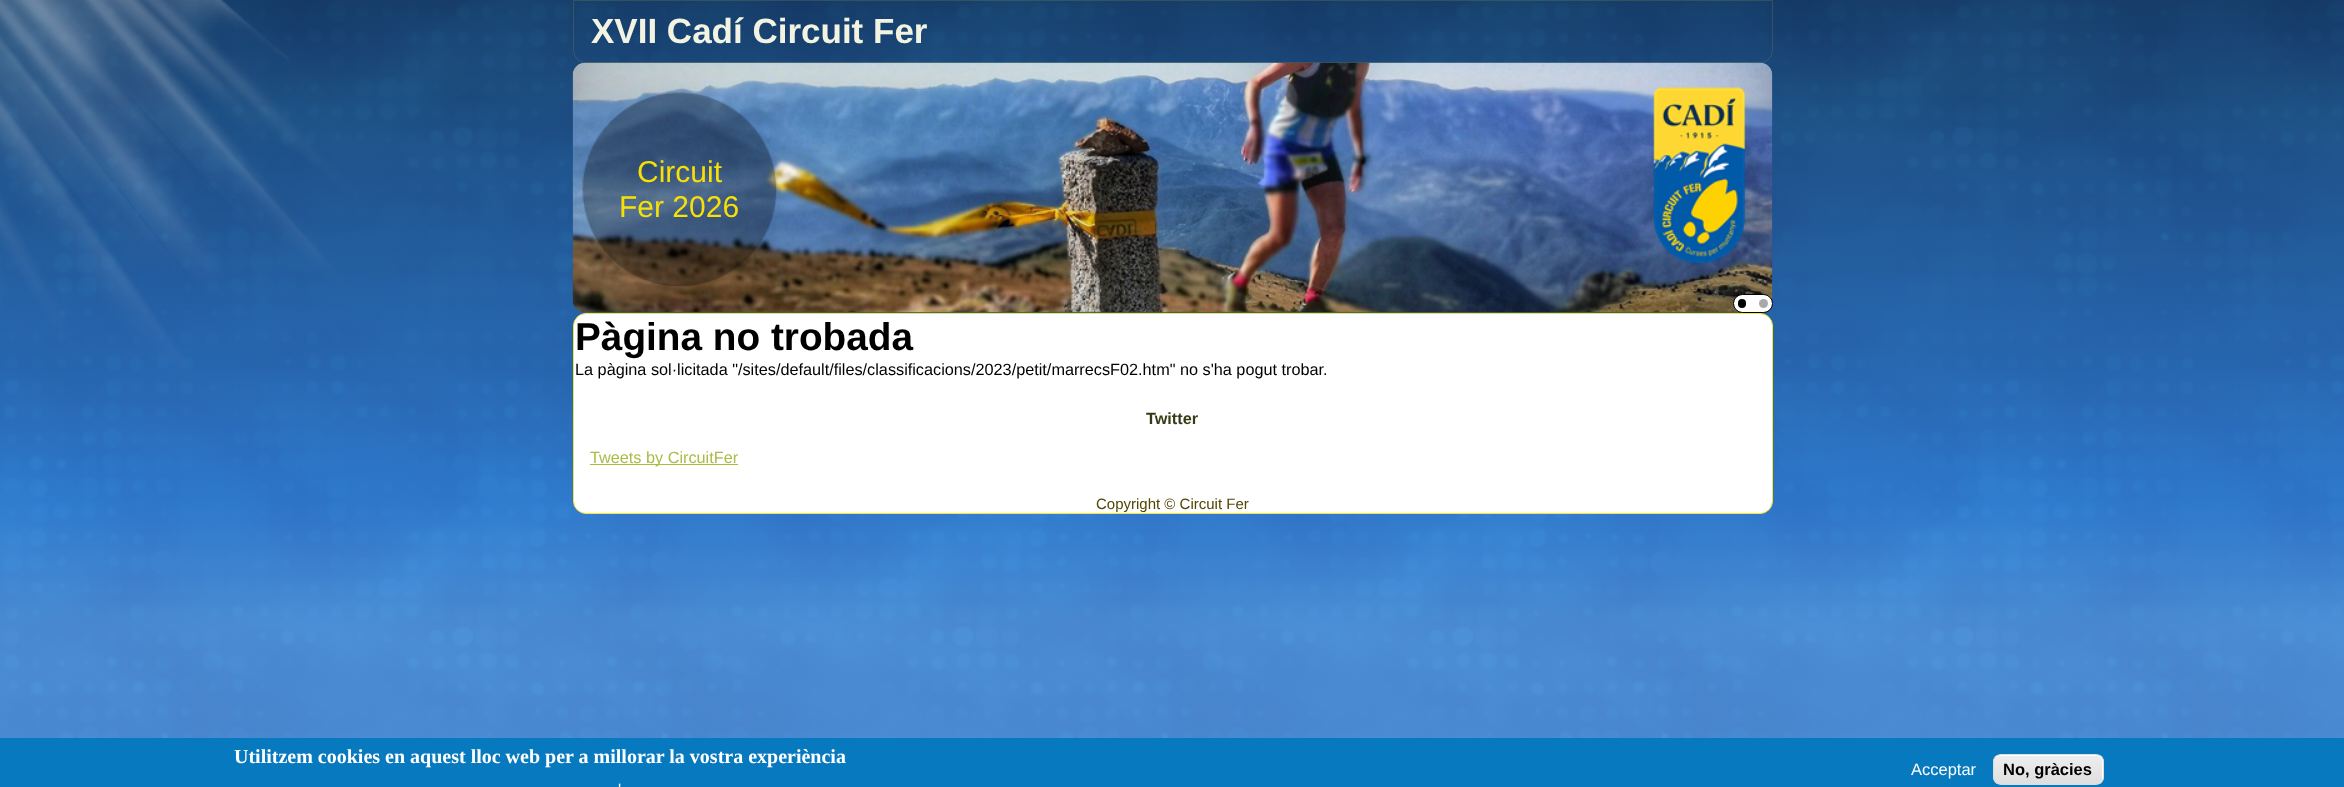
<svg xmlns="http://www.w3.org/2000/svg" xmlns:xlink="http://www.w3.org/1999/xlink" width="2344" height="787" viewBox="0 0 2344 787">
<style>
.cls-1{font:bold 35px Liberation Sans;fill:#f2f4e1}
.cls-2{font:30px Liberation Sans;fill:#f7df08}
.cls-3{font:bold 38.75px Liberation Sans;fill:#000000}
.cls-4{font:16.25px Liberation Sans;fill:#000000}
.cls-5{font:bold 16.25px Liberation Sans;fill:#373c16}
.cls-6{font:16.25px Liberation Sans;fill:#abbb44}
.cls-7{font:15px Liberation Sans;fill:#4f4702}
.cls-8{font:bold 20px Liberation Serif;fill:#ffffff}
.cls-9{font:16.5px Liberation Sans;fill:#ffffff}
.cls-10{font:bold 16.5px Liberation Sans;fill:#000000}
</style>
<defs>
<clipPath id="clip1"><rect x="1993" y="754" width="111" height="31" rx="8"/></clipPath>
<linearGradient id="g1" gradientUnits="userSpaceOnUse" x1="2048" y1="755" x2="2048" y2="784"><stop offset="0.05" stop-color="#ededed"/><stop offset="1" stop-color="#dfdfdf"/></linearGradient>
</defs>
<rect width="100%" height="100%" fill="#ffffff"/>
<image xlink:href="image0.png" x="0" y="0" width="2344" height="738"/>
<path fill="none" stroke="#9eac3e" stroke-opacity="0.2" d="M573.5 .5H1772.5V50C1772.5 57 1767 62.5 1760 62.5H586C579 62.5 573.5 57 573.5 50Z"/>
<image xlink:href="image1.png" x="572" y="62" width="1201" height="251"/>
<rect fill="#ffffff" stroke="#000000" x="1733.5" y="294.5" width="39" height="18" rx="9"/>
<rect fill="#000000" x="1738" y="299" width="8" height="9" rx="4"/>
<circle fill="#a9a9a9" cx="1763.5" cy="303.5" r="4.5"/>
<rect fill="#ffffff" stroke="#f9e42f" x="573.5" y="313.5" width="1199" height="200" rx="12.5"/>
<rect fill="#abbb44" x="590" y="464" width="148" height="1"/>
<rect fill="#0779bf" x="0" y="738" width="2344" height="49"/>
<g clip-path="url(#clip1)">
<rect fill="url(#g1)" x="1993" y="755" width="111" height="29"/>
</g>
<path fill="#ffffff" d="M2000 756H2096C2100 756 2102 759 2102 762V779C2102 780 2102 781 2101 782C2104 779 2103 773 2103 770C2103 765 2105 755 2097 755H2016C2010 755 1994 751 1994 762C1994 759 1997 756 2000 756Z"/>
<rect fill="none" stroke="#dcdcdc" x="1993.5" y="754.5" width="110" height="30" rx="7.5"/>
<text class="cls-1" x="591" y="43">XVII Cadí Circuit Fer</text>
<text class="cls-2" x="637" y="182">Circuit</text>
<text class="cls-2" x="619" y="217">Fer 2026</text>
<text class="cls-3" x="575" y="350">Pàgina no trobada</text>
<text class="cls-4" x="575" y="375">La pàgina sol·licitada "/sites/default/files/classificacions/2023/petit/marrecsF02.htm" no s'ha pogut trobar.</text>
<text class="cls-5" x="1146" y="424">Twitter</text>
<text class="cls-6" x="590" y="463">Tweets by CircuitFer</text>
<text class="cls-7" x="1096" y="509">Copyright © Circuit Fer</text>
<text class="cls-8" x="234" y="763">Utilitzem cookies en aquest lloc web per a millorar la vostra experiència</text>
<text class="cls-9" x="618" y="795">'</text>
<text class="cls-9" x="1911" y="775">Acceptar</text>
<text class="cls-10" x="2003" y="775">No, gràcies</text>
</svg>
